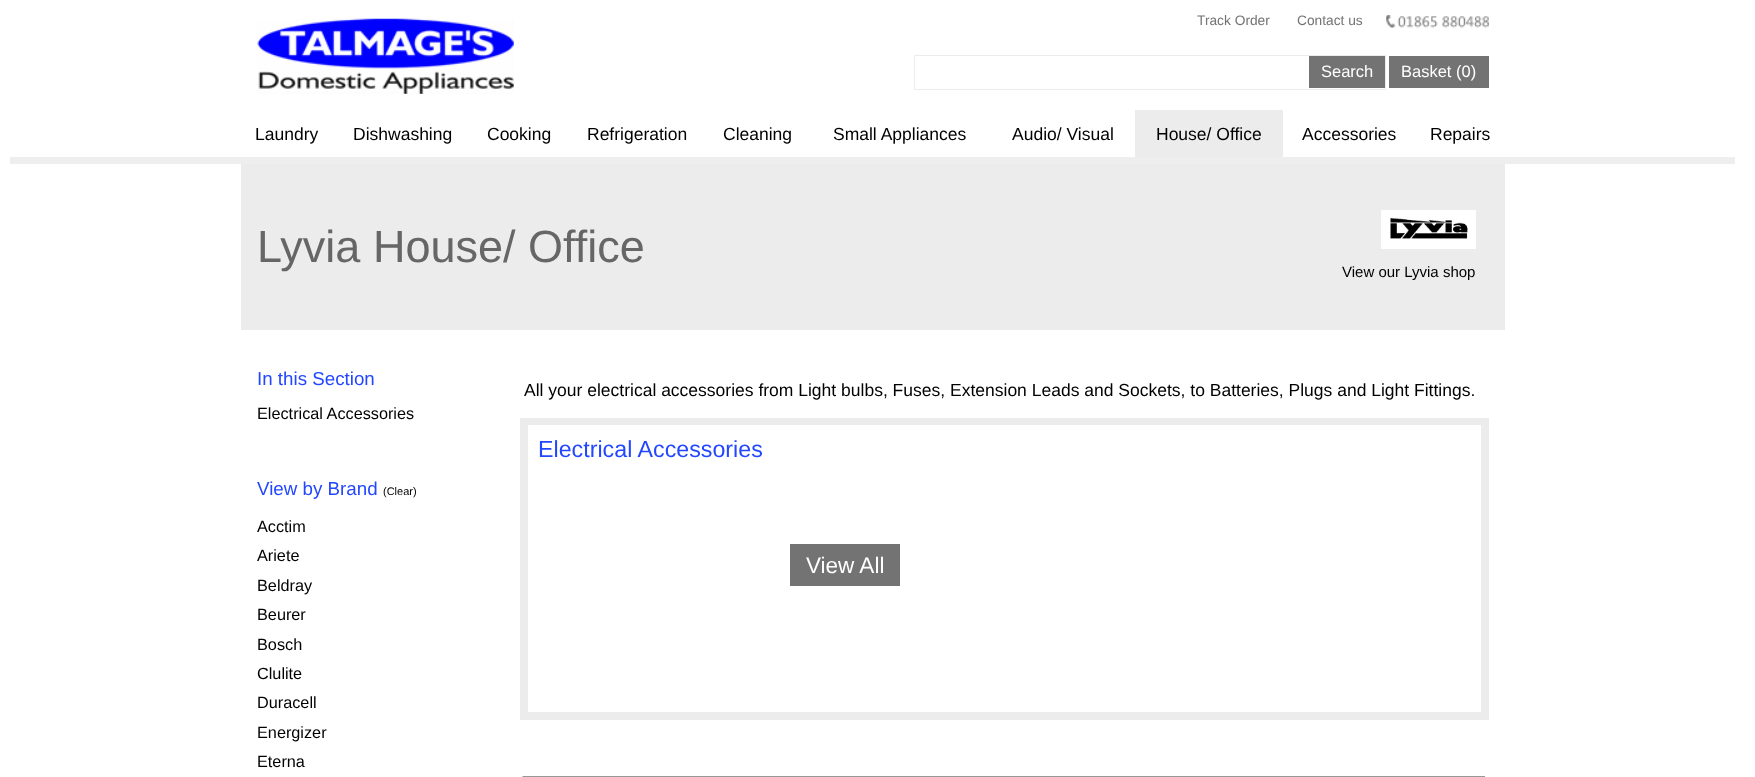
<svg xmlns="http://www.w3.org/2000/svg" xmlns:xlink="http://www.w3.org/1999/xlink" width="1755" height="777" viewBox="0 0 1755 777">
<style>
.cls-1{font:13.75px Liberation Sans;fill:#737373}
.cls-2{font:16.5px Liberation Sans;fill:#ffffff}
.cls-3{font:17.5px Liberation Sans;fill:#000000}
.cls-4{font:45px Liberation Sans;fill:#666666}
.cls-5{font:15px Liberation Sans;fill:#000000}
.cls-6{font:18.75px Liberation Sans;fill:#2347ff}
.cls-7{font:16.25px Liberation Sans;fill:#000000}
.cls-8{font:11px Liberation Sans;fill:#000000}
.cls-9{font:23.25px Liberation Sans;fill:#2347ff}
.cls-10{font:22.5px Liberation Sans;fill:#ffffff}
</style>
<rect width="100%" height="100%" fill="#ffffff"/>
<image xlink:href="image0.png" x="257" y="18" width="257" height="76"/>
<image xlink:href="image1.png" x="1386" y="15" width="103" height="13"/>
<rect fill="none" stroke="#ececec" x="914.5" y="55.5" width="471" height="34"/>
<rect fill="#737373" x="1309" y="56" width="76" height="32"/>
<rect fill="#737373" x="1389" y="56" width="100" height="32"/>
<rect fill="#eeeeee" x="10" y="157" width="1725" height="7"/>
<rect fill="#ececec" x="1135" y="110" width="148" height="47"/>
<rect fill="#ececec" x="241" y="164" width="1264" height="166"/>
<rect fill="#ffffff" x="1381" y="210" width="95" height="39"/>
<image xlink:href="image2.png" x="1390" y="217" width="78" height="22"/>
<rect fill="none" stroke="#ececec" stroke-width="4" x="522" y="420" width="965" height="298"/>
<rect fill="none" stroke="#ececec" stroke-width="4" x="526" y="423" width="957" height="291"/>
<rect fill="#737373" x="790" y="544" width="110" height="42"/>
<image xlink:href="image3.png" x="522" y="776" width="963" height="1"/>
<text class="cls-1" x="1197" y="25">Track Order</text>
<text class="cls-1" x="1297" y="25">Contact us</text>
<text class="cls-2" x="1321" y="77">Search</text>
<text class="cls-2" x="1401" y="77">Basket (0)</text>
<text class="cls-3" x="255" y="140">Laundry</text>
<text class="cls-3" x="353" y="140">Dishwashing</text>
<text class="cls-3" x="487" y="140">Cooking</text>
<text class="cls-3" x="587" y="140">Refrigeration</text>
<text class="cls-3" x="723" y="140">Cleaning</text>
<text class="cls-3" x="833" y="140">Small Appliances</text>
<text class="cls-3" x="1012" y="140">Audio/ Visual</text>
<text class="cls-3" x="1156" y="140">House/ Office</text>
<text class="cls-3" x="1302" y="140">Accessories</text>
<text class="cls-3" x="1430" y="140">Repairs</text>
<text class="cls-4" x="257" y="262">Lyvia House/ Office</text>
<text class="cls-5" x="1342" y="277">View our Lyvia shop</text>
<text class="cls-6" x="257" y="385">In this Section</text>
<text class="cls-7" x="257" y="419">Electrical Accessories</text>
<rect fill="#d0d0d0" x="413" y="417" width="1" height="1"/>
<text class="cls-6" x="257" y="495">View by Brand</text>
<text class="cls-8" x="383" y="495">(Clear)</text>
<text class="cls-7"><tspan x="257" y="532">Acctim</tspan><tspan x="257" y="561">Ariete</tspan><tspan x="257" y="591">Beldray</tspan><tspan x="257" y="620">Beurer</tspan><tspan x="257" y="650">Bosch</tspan><tspan x="257" y="679">Clulite</tspan><tspan x="257" y="708">Duracell</tspan><tspan x="257" y="738">Energizer</tspan><tspan x="257" y="767">Eterna</tspan></text>
<text class="cls-3" x="524" y="396">All your electrical accessories from Light bulbs, Fuses, Extension Leads and Sockets, to Batteries, Plugs and Light Fittings.</text>
<text class="cls-9" x="538" y="457">Electrical Accessories</text>
<text class="cls-10" x="806" y="573">View All</text>
</svg>
